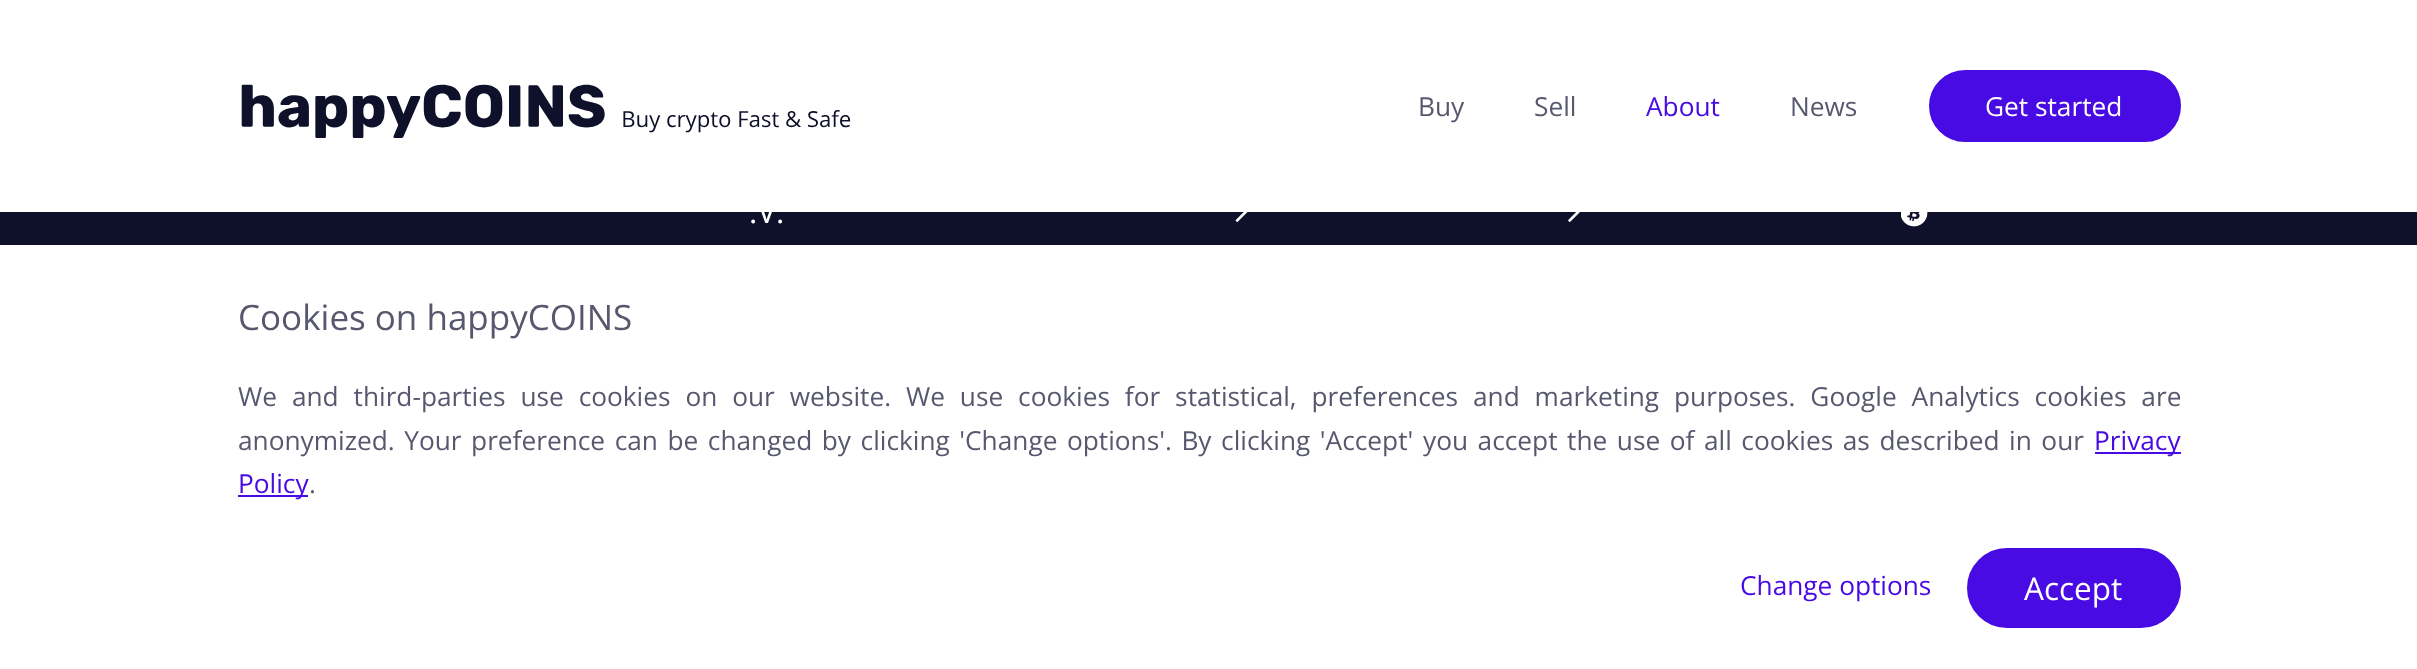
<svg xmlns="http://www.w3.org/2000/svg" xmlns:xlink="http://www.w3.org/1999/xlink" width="2417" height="669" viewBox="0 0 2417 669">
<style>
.cls-1{font:26.25px Open Sans;fill:#57586e}
.cls-2{font:26.25px Open Sans;fill:#480be3}
.cls-3{font:26.25px Open Sans;fill:#ffffff}
.cls-4{font:31.5px Open Sans;fill:#ffffff}
.cls-5{font:35px Open Sans;fill:#57586e}
</style>
<rect width="100%" height="100%" fill="#0f102a"/>
<rect fill="#ffffff" x="0" y="0" width="2417" height="212"/>
<image xlink:href="image0.png" x="241" y="84" width="610" height="54"/>
<rect fill="#480be3" stroke="#480be3" stroke-width="2" x="1930" y="71" width="250" height="70" rx="35"/>
<image xlink:href="image1.png" x="1235" y="212" width="13" height="10"/>
<image xlink:href="image2.png" x="1568" y="212" width="12" height="10"/>
<image xlink:href="image3.png" x="1901" y="212" width="27" height="15"/>
<rect fill="#ffffff" x="0" y="245" width="2417" height="424"/>
<rect fill="#480be3" x="2095" y="452" width="86" height="2"/>
<rect fill="#480be3" x="238" y="495" width="70" height="2"/>
<rect fill="#480be3" stroke="#480be3" stroke-width="2" x="1968" y="549" width="212" height="78" rx="39"/>
<text class="cls-1" x="1418" y="116">Buy</text>
<text class="cls-1" x="1534" y="116">Sell</text>
<text class="cls-2" x="1646" y="116">About</text>
<text class="cls-1" x="1790" y="116">News</text>
<text class="cls-3" x="1985" y="116">Get started</text>
<text class="cls-4" x="749" y="223">.V.</text>
<text class="cls-5" x="238" y="330">Cookies on happyCOINS</text>
<text class="cls-1"><tspan x="238" y="406" word-spacing="8.1">We and third-parties use cookies on our website. We use cookies for statistical, preferences and marketing purposes. Google Analytics cookies are</tspan><tspan x="238" y="450" word-spacing="2.75">anonymized. Your preference can be changed by clicking 'Change options'. By clicking 'Accept'</tspan></text>
<text class="cls-1" x="1423" y="450" word-spacing="2.75">you accept the use of all cookies as described in our</text>
<text class="cls-2" x="2094" y="450">Privacy</text>
<text class="cls-2" x="238" y="493">Policy</text>
<text class="cls-1" x="309" y="493">.</text>
<text class="cls-2" x="1740" y="595">Change options</text>
<text class="cls-4" x="2024" y="600">Accept</text>
</svg>
